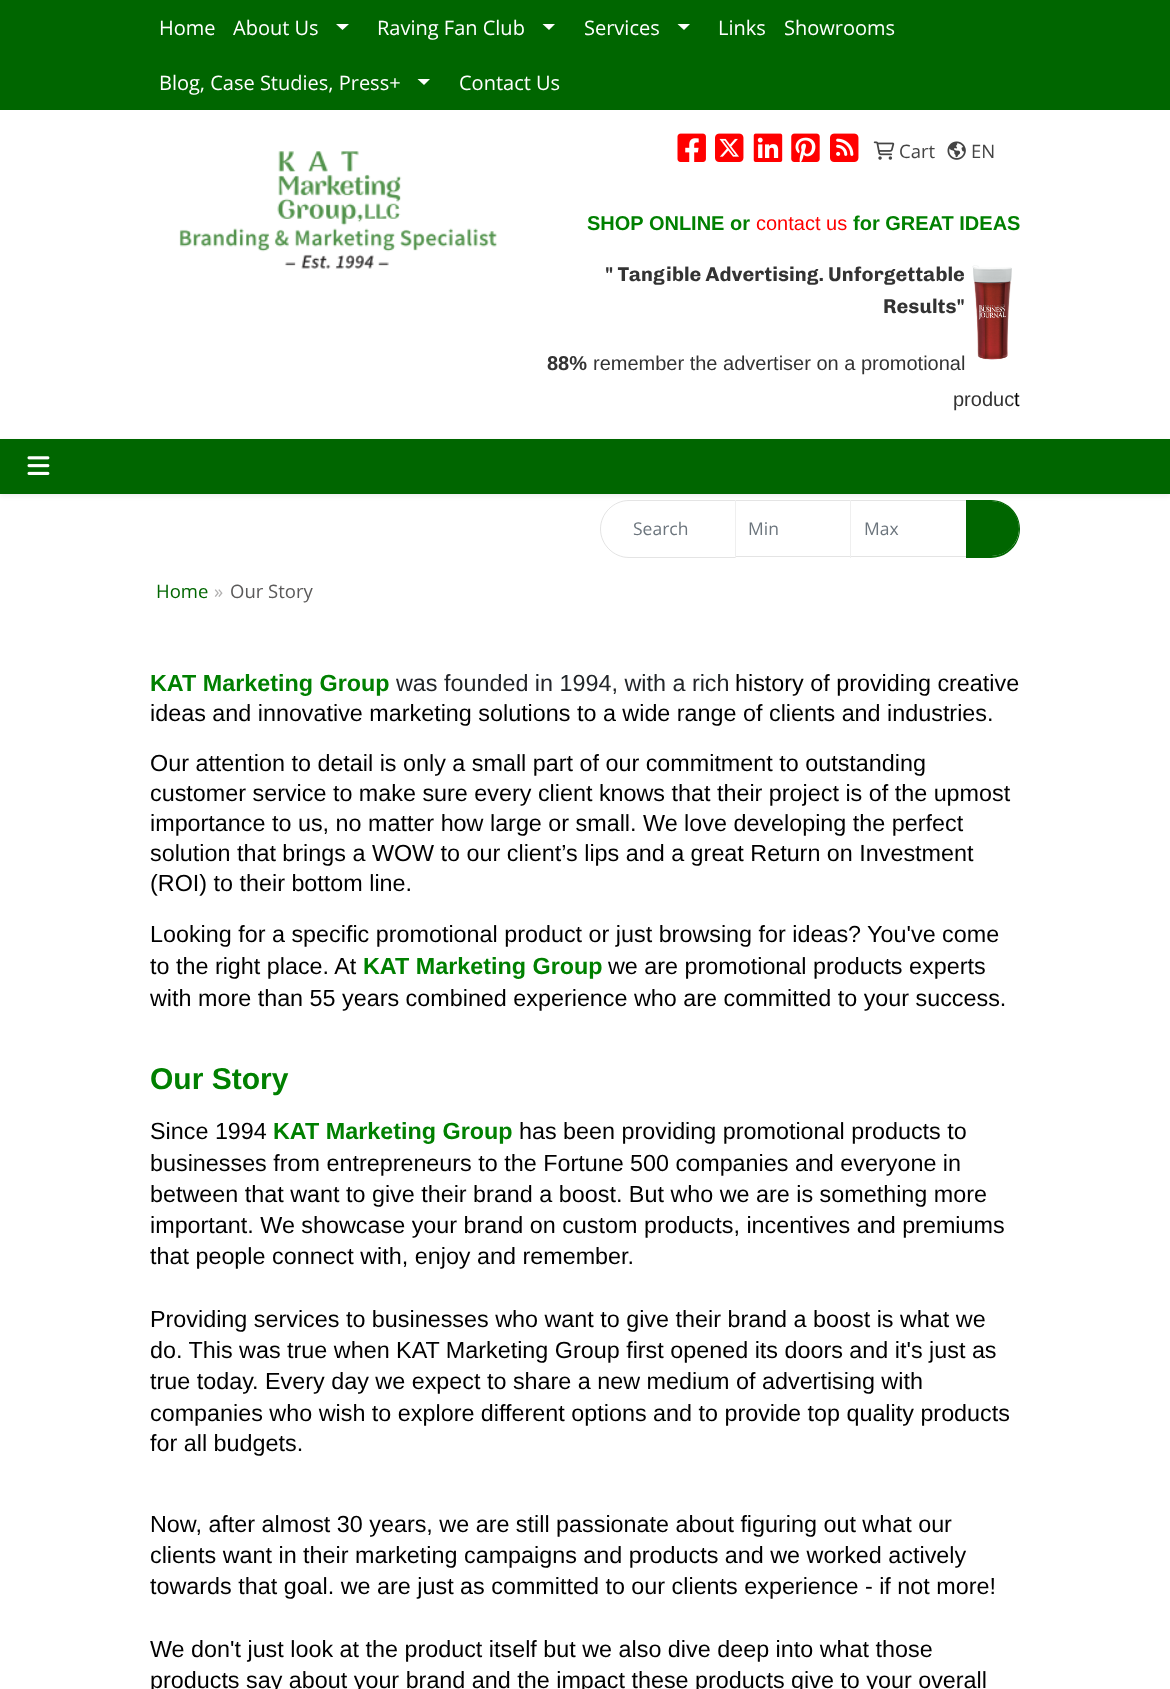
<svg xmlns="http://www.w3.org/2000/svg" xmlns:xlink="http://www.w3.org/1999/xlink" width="1170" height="1689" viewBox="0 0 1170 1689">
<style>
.cls-1{font:20px Open Sans;fill:#ffffff}
.cls-2{font:18.5px Open Sans;fill:#444444}
.cls-3{font:bold 20px Liberation Sans;fill:#008000}
.cls-4{font:20px Liberation Sans;fill:#ff0000}
.cls-5{font:bold 20px Chivo;fill:#333333}
.cls-6{font:bold 20px Liberation Sans;fill:#333333}
.cls-7{font:20px Liberation Sans;fill:#333333}
.cls-8{font:20px Liberation Sans;fill:#000000}
.cls-9{font:17.5px Open Sans;fill:#6c757d}
.cls-10{font:18.5px Open Sans;fill:#006600}
.cls-11{font:18.5px Open Sans;fill:#b2b1b1}
.cls-12{font:18.5px Open Sans;fill:#5b5a5a}
.cls-13{font:bold 23.35px Liberation Sans;fill:#008000}
.cls-14{font:23.35px Liberation Sans;fill:#212529}
.cls-15{font:23.35px Liberation Sans;fill:#000000}
.cls-16{font:bold 30px Liberation Sans;fill:#008000}
</style>
<rect width="100%" height="100%" fill="#ffffff"/>
<rect fill="#006600" x="0" y="0" width="1170" height="110"/>
<path fill="#ffffff" d="M336 24H349L342.5 30Z"/>
<path fill="#ffffff" d="M542.5 24H555L549 30Z"/>
<path fill="#ffffff" d="M677.5 24H690L684 30Z"/>
<path fill="#ffffff" d="M417.5 79H430L424 85Z"/>
<image xlink:href="image0.png" x="179" y="151" width="318" height="118"/>
<image xlink:href="image1.png" x="677" y="133" width="29" height="29"/>
<image xlink:href="image2.png" x="715" y="133" width="29" height="29"/>
<image xlink:href="image3.png" x="753" y="133" width="30" height="29"/>
<image xlink:href="image4.png" x="791" y="133" width="29" height="29"/>
<image xlink:href="image5.png" x="830" y="133" width="29" height="29"/>
<image xlink:href="image6.png" x="873" y="141" width="22" height="19"/>
<image xlink:href="image7.png" x="947" y="141" width="19" height="19"/>
<image xlink:href="image8.png" x="972" y="265" width="40" height="95"/>
<rect fill="#000000" fill-opacity="0.07" filter="blur(2.5px)" x="0" y="441" width="1170" height="55"/>
<rect fill="#006600" x="0" y="439" width="1170" height="55"/>
<image xlink:href="image9.png" x="27" y="456" width="23" height="19"/>
<path fill="none" stroke="#e4e4e4" d="M629 500.5H735.5V557.5H629C613.5 557.5 600.5 544.5 600.5 529C600.5 513.5 613.5 500.5 629 500.5Z"/>
<rect fill="#e4e4e4" x="735" y="500" width="233" height="1"/>
<rect fill="#e4e4e4" x="735" y="556" width="233" height="1"/>
<rect fill="#efefef" x="735" y="500" width="1" height="58"/>
<rect fill="#efefef" x="850" y="500" width="1" height="58"/>
<path fill="#006600" d="M966 501H991.5C1006.5 501 1019 513.5 1019 528.5C1019 543.5 1006.5 556 991.5 556H966Z"/>
<path fill="#006600" fill-rule="evenodd" d="M966 500H991C1007 500 1020 513 1020 529C1020 545 1007 558 991 558H966ZM966 501H991C1006 501 1019 514 1019 529C1019 544 1006 556 991 556H966Z"/>
<text class="cls-1" x="159" y="35">Home</text>
<text class="cls-1" x="233" y="35">About Us</text>
<text class="cls-1" x="377" y="35">Raving Fan Club</text>
<text class="cls-1" x="584" y="35">Services</text>
<text class="cls-1" x="718" y="35">Links</text>
<text class="cls-1" x="784" y="35">Showrooms</text>
<text class="cls-1" x="159" y="90">Blog, Case Studies, Press+</text>
<text class="cls-1" x="459" y="90">Contact Us</text>
<text class="cls-2" x="899" y="158">Cart</text>
<text class="cls-2" x="971" y="158">EN</text>
<text class="cls-3" x="587" y="230">SHOP ONLINE or</text>
<text class="cls-4" x="756" y="230">contact us</text>
<text class="cls-3" x="853" y="230">for GREAT IDEAS</text>
<text class="cls-5" x="605" y="281">" Tangible Advertising. Unforgettable</text>
<text class="cls-5" x="883" y="313">Results"</text>
<text class="cls-6" x="547" y="370">88%</text>
<text class="cls-7" x="593" y="370">remember the advertiser on a promotional</text>
<text class="cls-7" x="953" y="406">produc</text>
<text class="cls-8" x="1014" y="406">t</text>
<text class="cls-9" x="633" y="535">Search</text>
<text class="cls-9" x="748" y="535">Min</text>
<text class="cls-9" x="864" y="535">Max</text>
<text class="cls-10" x="156" y="598">Home</text>
<text class="cls-11" x="214" y="598">»</text>
<text class="cls-12" x="230" y="598">Our Story</text>
<text class="cls-13" x="150" y="691">KAT Marketing Group</text>
<text class="cls-14" x="396" y="691">was founded in 1994, with a rich</text>
<text class="cls-15" x="735" y="691">history of providing creative</text>
<text class="cls-15" x="150" y="721">ideas and innovative marketing solutions to a wide range of clients and industries.</text>
<text class="cls-15"><tspan x="150" y="771">Our attention to detail is only a small part of our commitment to outstanding</tspan><tspan x="150" y="801">customer service to make sure every client knows that their project is of the upmost</tspan><tspan x="150" y="831">importance to us, no matter how large or small. We love developing the perfect</tspan><tspan x="150" y="861">solution that brings a WOW to our client’s lips and a great Return on Investment</tspan><tspan x="150" y="891">(ROI) to their bottom line.</tspan></text>
<text class="cls-15"><tspan x="150" y="942">Looking for a specific promotional product or just browsing for ideas? You've come</tspan><tspan x="150" y="974">to the right place. At</tspan></text>
<text class="cls-13" x="363" y="974">KAT Marketing Group</text>
<text class="cls-15" x="608" y="974">we are promotional products experts</text>
<text class="cls-15" x="150" y="1006">with more than 55 years combined experience who are committed to your success.</text>
<text class="cls-16" x="150" y="1089">Our Story</text>
<text class="cls-15" x="150" y="1139">Since 1994</text>
<text class="cls-13" x="273" y="1139">KAT Marketing Group</text>
<text class="cls-15" x="519" y="1139">has been providing promotional products to</text>
<text class="cls-15"><tspan x="150" y="1171">businesses from entrepreneurs to the Fortune 500 companies and everyone in</tspan><tspan x="150" y="1202">between that want to give their brand a boost. But who we are is something more</tspan><tspan x="150" y="1233">important. We showcase your brand on custom products, incentives and premiums</tspan><tspan x="150" y="1264">that people connect with, enjoy and remember.</tspan></text>
<text class="cls-15"><tspan x="150" y="1327">Providing services to businesses who want to give their brand a boost is what we</tspan><tspan x="150" y="1358">do. This was true when KAT Marketing Group first opened its doors and it's just as</tspan><tspan x="150" y="1389">true today. Every day we expect to share a new medium of advertising with</tspan><tspan x="150" y="1421">companies who wish to explore different options and to provide top quality products</tspan><tspan x="150" y="1451">for all budgets.</tspan></text>
<text class="cls-15"><tspan x="150" y="1532">Now, after almost 30 years, we are still passionate about figuring out what our</tspan><tspan x="150" y="1563">clients want in their marketing campaigns and products and we worked actively</tspan><tspan x="150" y="1594">towards that goal. we are just as committed to our clients experience - if not more!</tspan></text>
<text class="cls-15"><tspan x="150" y="1657">We don't just look at the product itself but we also dive deep into what those</tspan><tspan x="150" y="1688">products say about your brand and the impact these products give to your overall</tspan></text>
</svg>
